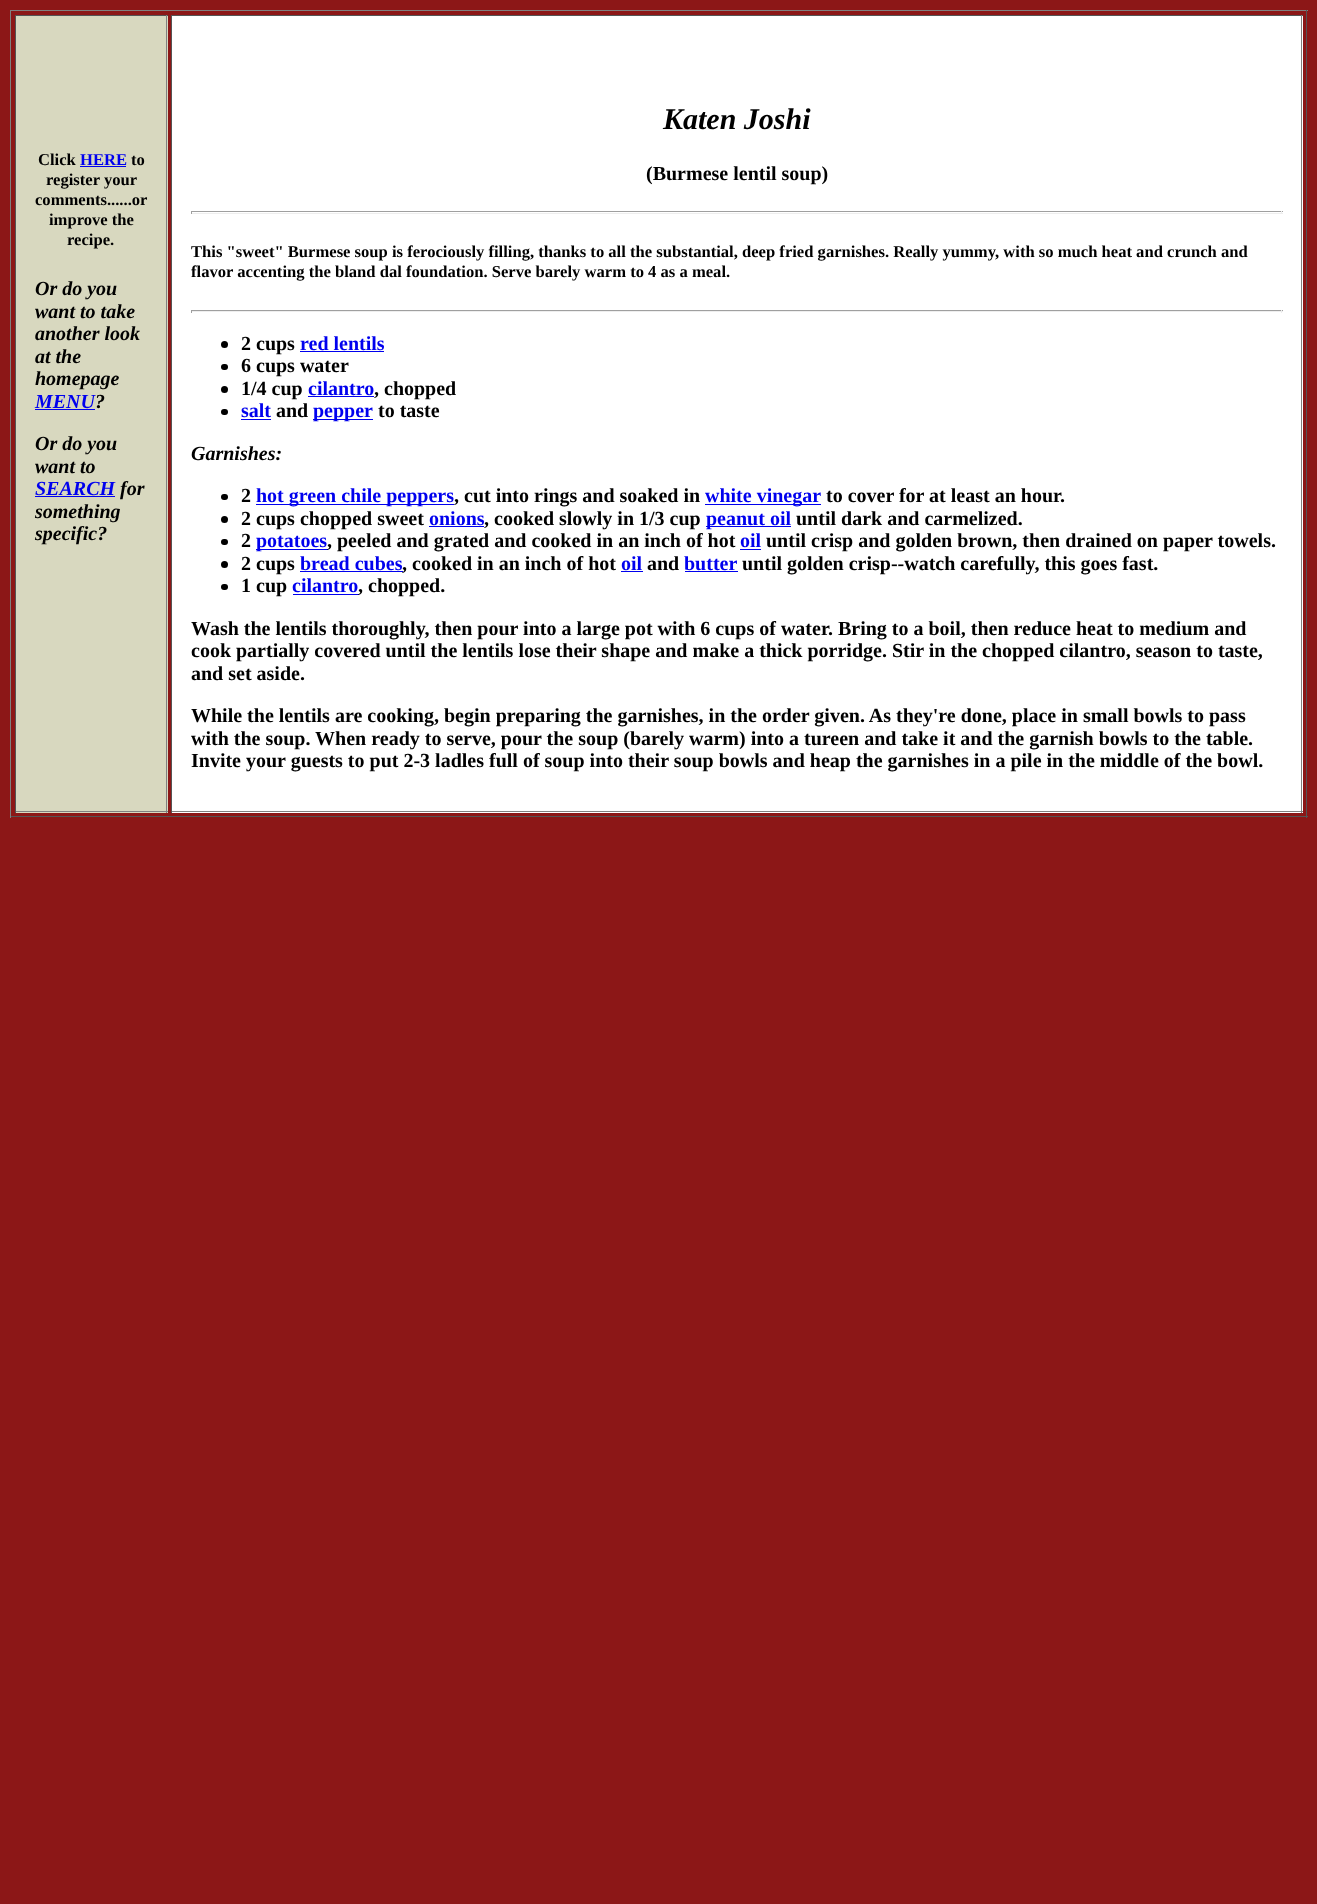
<svg xmlns="http://www.w3.org/2000/svg" xmlns:xlink="http://www.w3.org/1999/xlink" width="1317" height="1904" viewBox="0 0 1317 1904">
<style>
.cls-1{font:bold 16.6px Liberation Serif;fill:#000000}
.cls-2{font:bold 16.6px Liberation Serif;fill:#0000ee}
.cls-3{font:italic bold 20px Liberation Serif;fill:#000000}
.cls-4{font:italic bold 20px Liberation Serif;fill:#0000ee}
.cls-5{font:italic bold 30px Liberation Serif;fill:#000000}
.cls-6{font:bold 20px Liberation Serif;fill:#000000}
.cls-7{font:bold 20px Liberation Serif;fill:#0000ee}
</style>
<rect width="100%" height="100%" fill="#8c1717"/>
<rect fill="#808080" x="10" y="10" width="1298" height="1"/>
<rect fill="#555555" x="1306" y="10" width="1" height="808"/>
<rect fill="#555555" x="10" y="816" width="1298" height="1"/>
<rect fill="#808080" x="10" y="10" width="1" height="808"/>
<rect fill="#d8d8bf" x="16" y="16" width="152" height="797"/>
<rect fill="#555555" x="15" y="15" width="153" height="1"/>
<rect fill="#808080" x="166" y="15" width="1" height="798"/>
<rect fill="#808080" x="15" y="811" width="153" height="1"/>
<rect fill="#555555" x="15" y="15" width="1" height="798"/>
<rect fill="#0000ee" x="80" y="166" width="46" height="1"/>
<rect fill="#0000ee" x="35" y="409" width="60" height="1"/>
<rect fill="#0000ee" x="35" y="496" width="80" height="1"/>
<rect fill="#ffffff" x="172" y="16" width="1131" height="797"/>
<rect fill="#555555" x="171" y="15" width="1132" height="1"/>
<rect fill="#808080" x="1301" y="15" width="1" height="798"/>
<rect fill="#808080" x="171" y="811" width="1132" height="1"/>
<rect fill="#555555" x="171" y="15" width="1" height="798"/>
<rect fill="#9f9f9f" x="191" y="211" width="1092" height="1"/>
<rect fill="#eeeeee" x="1281" y="211" width="1" height="3"/>
<rect fill="#eeeeee" x="191" y="213" width="1092" height="1"/>
<rect fill="#9f9f9f" x="191" y="211" width="1" height="3"/>
<rect fill="#9f9f9f" x="191" y="310" width="1092" height="1"/>
<rect fill="#eeeeee" x="1281" y="310" width="1" height="3"/>
<rect fill="#eeeeee" x="191" y="311" width="1092" height="1"/>
<rect fill="#9f9f9f" x="191" y="310" width="1" height="3"/>
<circle fill="#000000" cx="224.5" cy="344.5" r="3.5"/>
<rect fill="#0000ee" x="300" y="351" width="84" height="1"/>
<rect fill="#000000" x="221" y="364" width="7" height="6" rx="3"/>
<circle fill="#000000" cx="224.5" cy="389.5" r="3.5"/>
<rect fill="#0000ee" x="308" y="396" width="66" height="1"/>
<rect fill="#000000" x="221" y="409" width="7" height="6" rx="3"/>
<rect fill="#0000ee" x="241" y="419" width="30" height="1"/>
<rect fill="#0000ee" x="313" y="419" width="60" height="1"/>
<rect fill="#000000" x="221" y="494" width="7" height="6" rx="3"/>
<rect fill="#0000ee" x="256" y="504" width="198" height="1"/>
<rect fill="#0000ee" x="705" y="504" width="116" height="1"/>
<circle fill="#000000" cx="224.5" cy="519.5" r="3.5"/>
<rect fill="#0000ee" x="429" y="526" width="55" height="1"/>
<rect fill="#0000ee" x="706" y="526" width="85" height="1"/>
<rect fill="#000000" x="221" y="539" width="7" height="6" rx="3"/>
<rect fill="#0000ee" x="256" y="549" width="72" height="1"/>
<rect fill="#0000ee" x="740" y="549" width="21" height="1"/>
<circle fill="#000000" cx="224.5" cy="564.5" r="3.5"/>
<rect fill="#0000ee" x="300" y="571" width="103" height="1"/>
<rect fill="#0000ee" x="621" y="571" width="22" height="1"/>
<rect fill="#0000ee" x="685" y="571" width="53" height="1"/>
<rect fill="#000000" x="221" y="584" width="7" height="6" rx="3"/>
<rect fill="#0000ee" x="293" y="594" width="66" height="1"/>
<text class="cls-1" x="38" y="165">Click</text>
<text class="cls-2" x="80" y="165">HERE</text>
<text class="cls-1" x="131" y="165">to</text>
<text class="cls-1" x="46" y="185">register your</text>
<text class="cls-1" x="35" y="205">comments......or</text>
<text class="cls-1" x="49" y="225">improve the</text>
<text class="cls-1" x="67" y="245">recipe.</text>
<text class="cls-3"><tspan x="35" y="295">Or do you</tspan><tspan x="35" y="318">want to take</tspan><tspan x="35" y="340">another look</tspan><tspan x="35" y="363">at the</tspan><tspan x="35" y="385">homepage</tspan></text>
<text class="cls-4" x="35" y="408">MENU</text>
<text class="cls-3" x="95" y="408">?</text>
<text class="cls-3"><tspan x="35" y="450">Or do you</tspan><tspan x="35" y="473">want to</tspan></text>
<text class="cls-4" x="35" y="495">SEARCH</text>
<text class="cls-3" x="120" y="495">for</text>
<text class="cls-3"><tspan x="35" y="518">something</tspan><tspan x="35" y="540">specific?</tspan></text>
<text class="cls-5" x="663" y="129">Katen Joshi</text>
<text class="cls-6" x="646" y="180">(Burmese lentil soup)</text>
<text class="cls-1"><tspan x="191" y="257">This "sweet" Burmese soup is ferociously filling, thanks to all the substantial, deep fried garnishes. Really yummy, with so much heat and crunch and</tspan><tspan x="191" y="277">flavor accenting the bland dal foundation. Serve barely warm to 4 as a meal.</tspan></text>
<text class="cls-6" x="241" y="350">2 cups</text>
<text class="cls-7" x="300" y="350">red lentils</text>
<text class="cls-6"><tspan x="241" y="372">6 cups water</tspan><tspan x="241" y="395">1/4 cup</tspan></text>
<text class="cls-7" x="308" y="395">cilantro</text>
<text class="cls-6" x="374" y="395">, chopped</text>
<text class="cls-7" x="241" y="417">salt</text>
<text class="cls-6" x="276" y="417">and</text>
<text class="cls-7" x="313" y="417">pepper</text>
<text class="cls-6" x="378" y="417">to taste</text>
<text class="cls-3" x="191" y="460">Garnishes:</text>
<text class="cls-6" x="241" y="502">2</text>
<text class="cls-7" x="256" y="502">hot green chile peppers</text>
<text class="cls-6" x="454" y="502">, cut into rings and soaked in</text>
<text class="cls-7" x="705" y="502">white vinegar</text>
<text class="cls-6" x="826" y="502">to cover for at least an hour.</text>
<text class="cls-6" x="241" y="525">2 cups chopped sweet</text>
<text class="cls-7" x="429" y="525">onions</text>
<text class="cls-6" x="484" y="525">, cooked slowly in 1/3 cup</text>
<text class="cls-7" x="706" y="525">peanut oil</text>
<text class="cls-6" x="796" y="525">until dark and carmelized.</text>
<text class="cls-6" x="241" y="547">2</text>
<text class="cls-7" x="256" y="547">potatoes</text>
<text class="cls-6" x="327" y="547">, peeled and grated and cooked in an inch of hot</text>
<text class="cls-7" x="740" y="547">oil</text>
<text class="cls-6" x="766" y="547">until crisp and golden brown, then drained on paper towels.</text>
<text class="cls-6" x="241" y="570">2 cups</text>
<text class="cls-7" x="300" y="570">bread cubes</text>
<text class="cls-6" x="402" y="570">, cooked in an inch of hot</text>
<text class="cls-7" x="621" y="570">oil</text>
<text class="cls-6" x="647" y="570">and</text>
<text class="cls-7" x="684" y="570">butter</text>
<text class="cls-6" x="742" y="570">until golden crisp--watch carefully, this goes fast.</text>
<text class="cls-6" x="241" y="592">1 cup</text>
<text class="cls-7" x="292" y="592">cilantro</text>
<text class="cls-6" x="358" y="592">, chopped.</text>
<text class="cls-6"><tspan x="191" y="635">Wash the lentils thoroughly, then pour into a large pot with 6 cups of water. Bring to a boil, then reduce heat to medium and</tspan><tspan x="191" y="657">cook partially covered until the lentils lose their shape and make a thick porridge. Stir in the chopped cilantro, season to taste,</tspan><tspan x="191" y="680">and set aside.</tspan></text>
<text class="cls-6"><tspan x="191" y="722">While the lentils are cooking, begin preparing the garnishes, in the order given. As they're done, place in small bowls to pass</tspan><tspan x="191" y="745">with the soup. When ready to serve, pour the soup (barely warm) into a tureen and take it and the garnish bowls to the table.</tspan><tspan x="191" y="767">Invite your guests to put 2-3 ladles full of soup into their soup bowls and heap the garnishes in a pile in the middle of the bowl.</tspan></text>
</svg>
